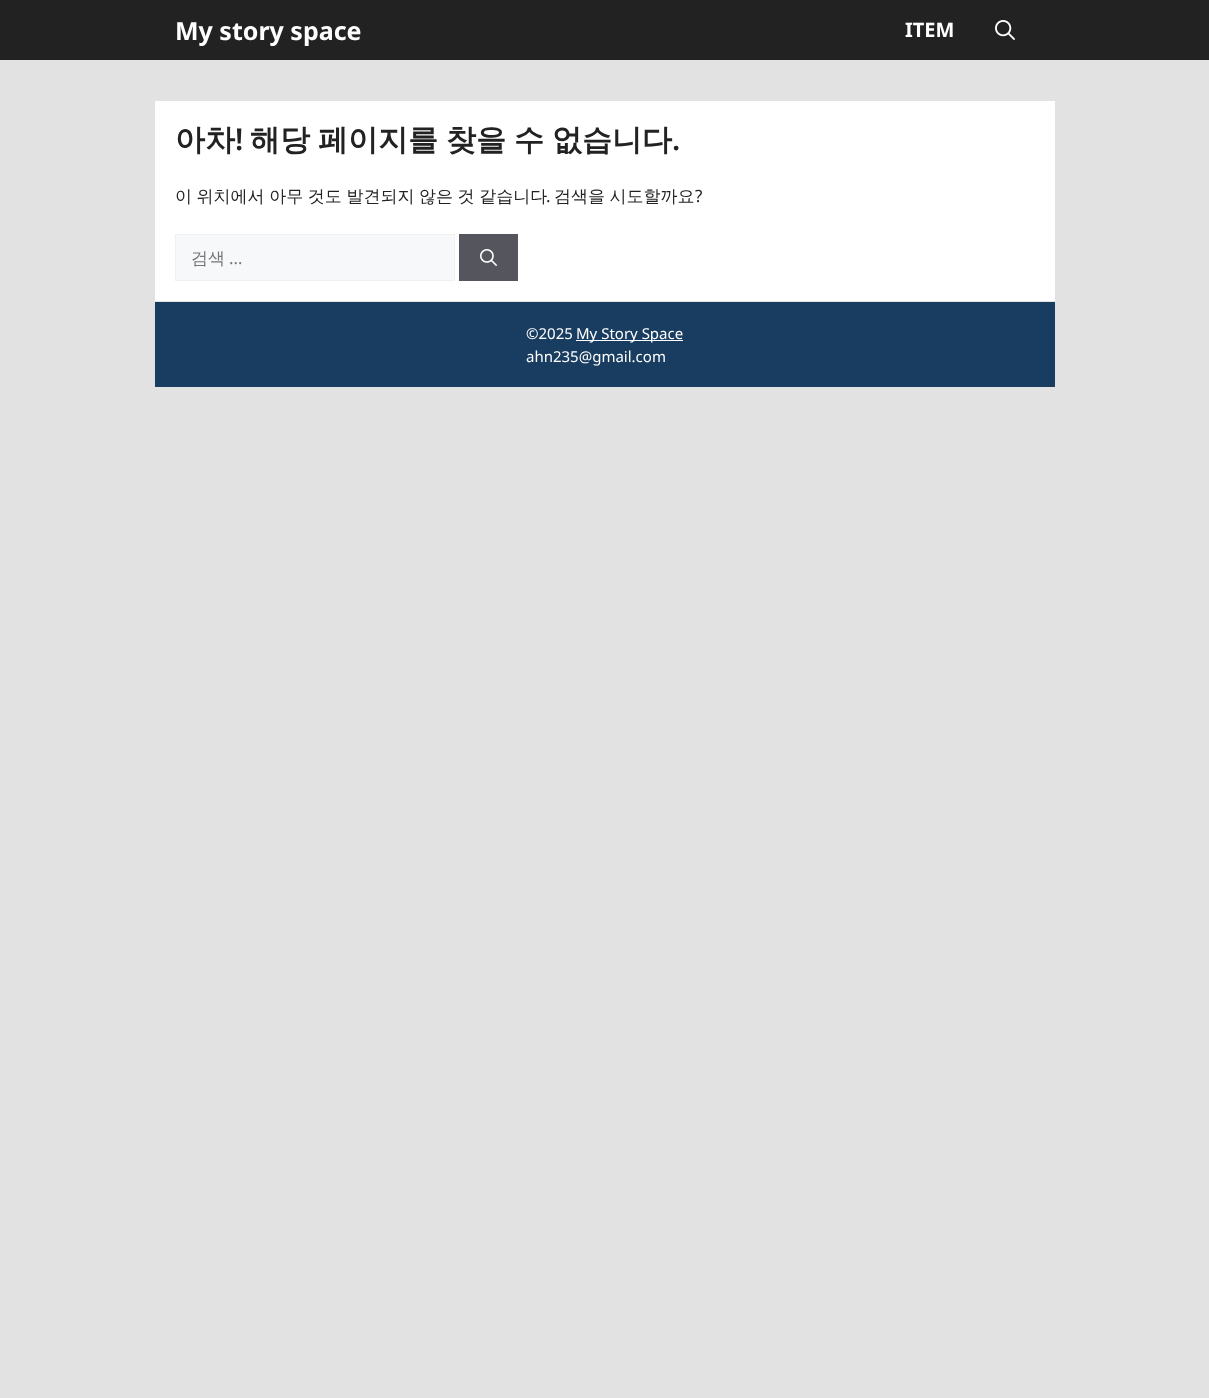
<svg xmlns="http://www.w3.org/2000/svg" xmlns:xlink="http://www.w3.org/1999/xlink" width="1209" height="1398" viewBox="0 0 1209 1398">
<style>
.cls-1{font:bold 25px Noto Sans;fill:#ffffff}
.cls-2{font:bold 20px Noto Sans;fill:#ffffff}
.cls-3{font:bold 30px WenQuanYi Zen Hei;fill:#222222}
.cls-4{font:600 30px Noto Sans;fill:#222222}
.cls-5{font:500 17px WenQuanYi Zen Hei;fill:#222222}
.cls-6{font:17px Noto Sans;fill:#222222}
.cls-7{font:500 17px WenQuanYi Zen Hei;fill:#757575}
.cls-8{font:17px Noto Sans;fill:#757575}
.cls-9{font:15px Noto Sans;fill:#ffffff}
</style>
<rect width="100%" height="100%" fill="#e2e2e2"/>
<rect fill="#222222" x="0" y="0" width="1209" height="60"/>
<image xlink:href="image0.png" x="995" y="20" width="20" height="20"/>
<rect fill="#ffffff" x="155" y="101" width="900" height="200"/>
<rect fill="#f7f8f9" stroke="#f0f0f0" x="175.5" y="234.5" width="279" height="46"/>
<rect fill="#55555e" x="459" y="234" width="59" height="47"/>
<image xlink:href="image1.png" x="480" y="249" width="17" height="17"/>
<rect fill="#193d61" x="155" y="302" width="900" height="85"/>
<rect fill="#ffffff" x="576" y="340" width="107" height="1"/>
<text class="cls-1" x="175" y="40">My story space</text>
<text class="cls-2" x="905" y="37">ITEM</text>
<text class="cls-3" x="175" y="150">아차</text>
<text class="cls-4" x="235" y="150">!</text>
<text class="cls-3" x="250" y="150" word-spacing="-1">해당 페이지를 찾을 수 없습니다</text>
<text class="cls-4" x="672" y="150">.</text>
<text class="cls-5" x="175" y="202" word-spacing="-0.5">이 위치에서 아무 것도 발견되지 않은 것 같습니다</text>
<text class="cls-6" x="546" y="202">.</text>
<text class="cls-5" x="554" y="202" word-spacing="-0.5">검색을 시도할까요</text>
<text class="cls-6" x="695" y="202">?</text>
<text class="cls-7" x="191" y="264">검색</text>
<text class="cls-8" x="229" y="264">…</text>
<text class="cls-9" x="526" y="339">©2025</text>
<text class="cls-9" x="576" y="339">My Story Space</text>
<text class="cls-9" x="526" y="362">ahn235@gmail.com</text>
</svg>
